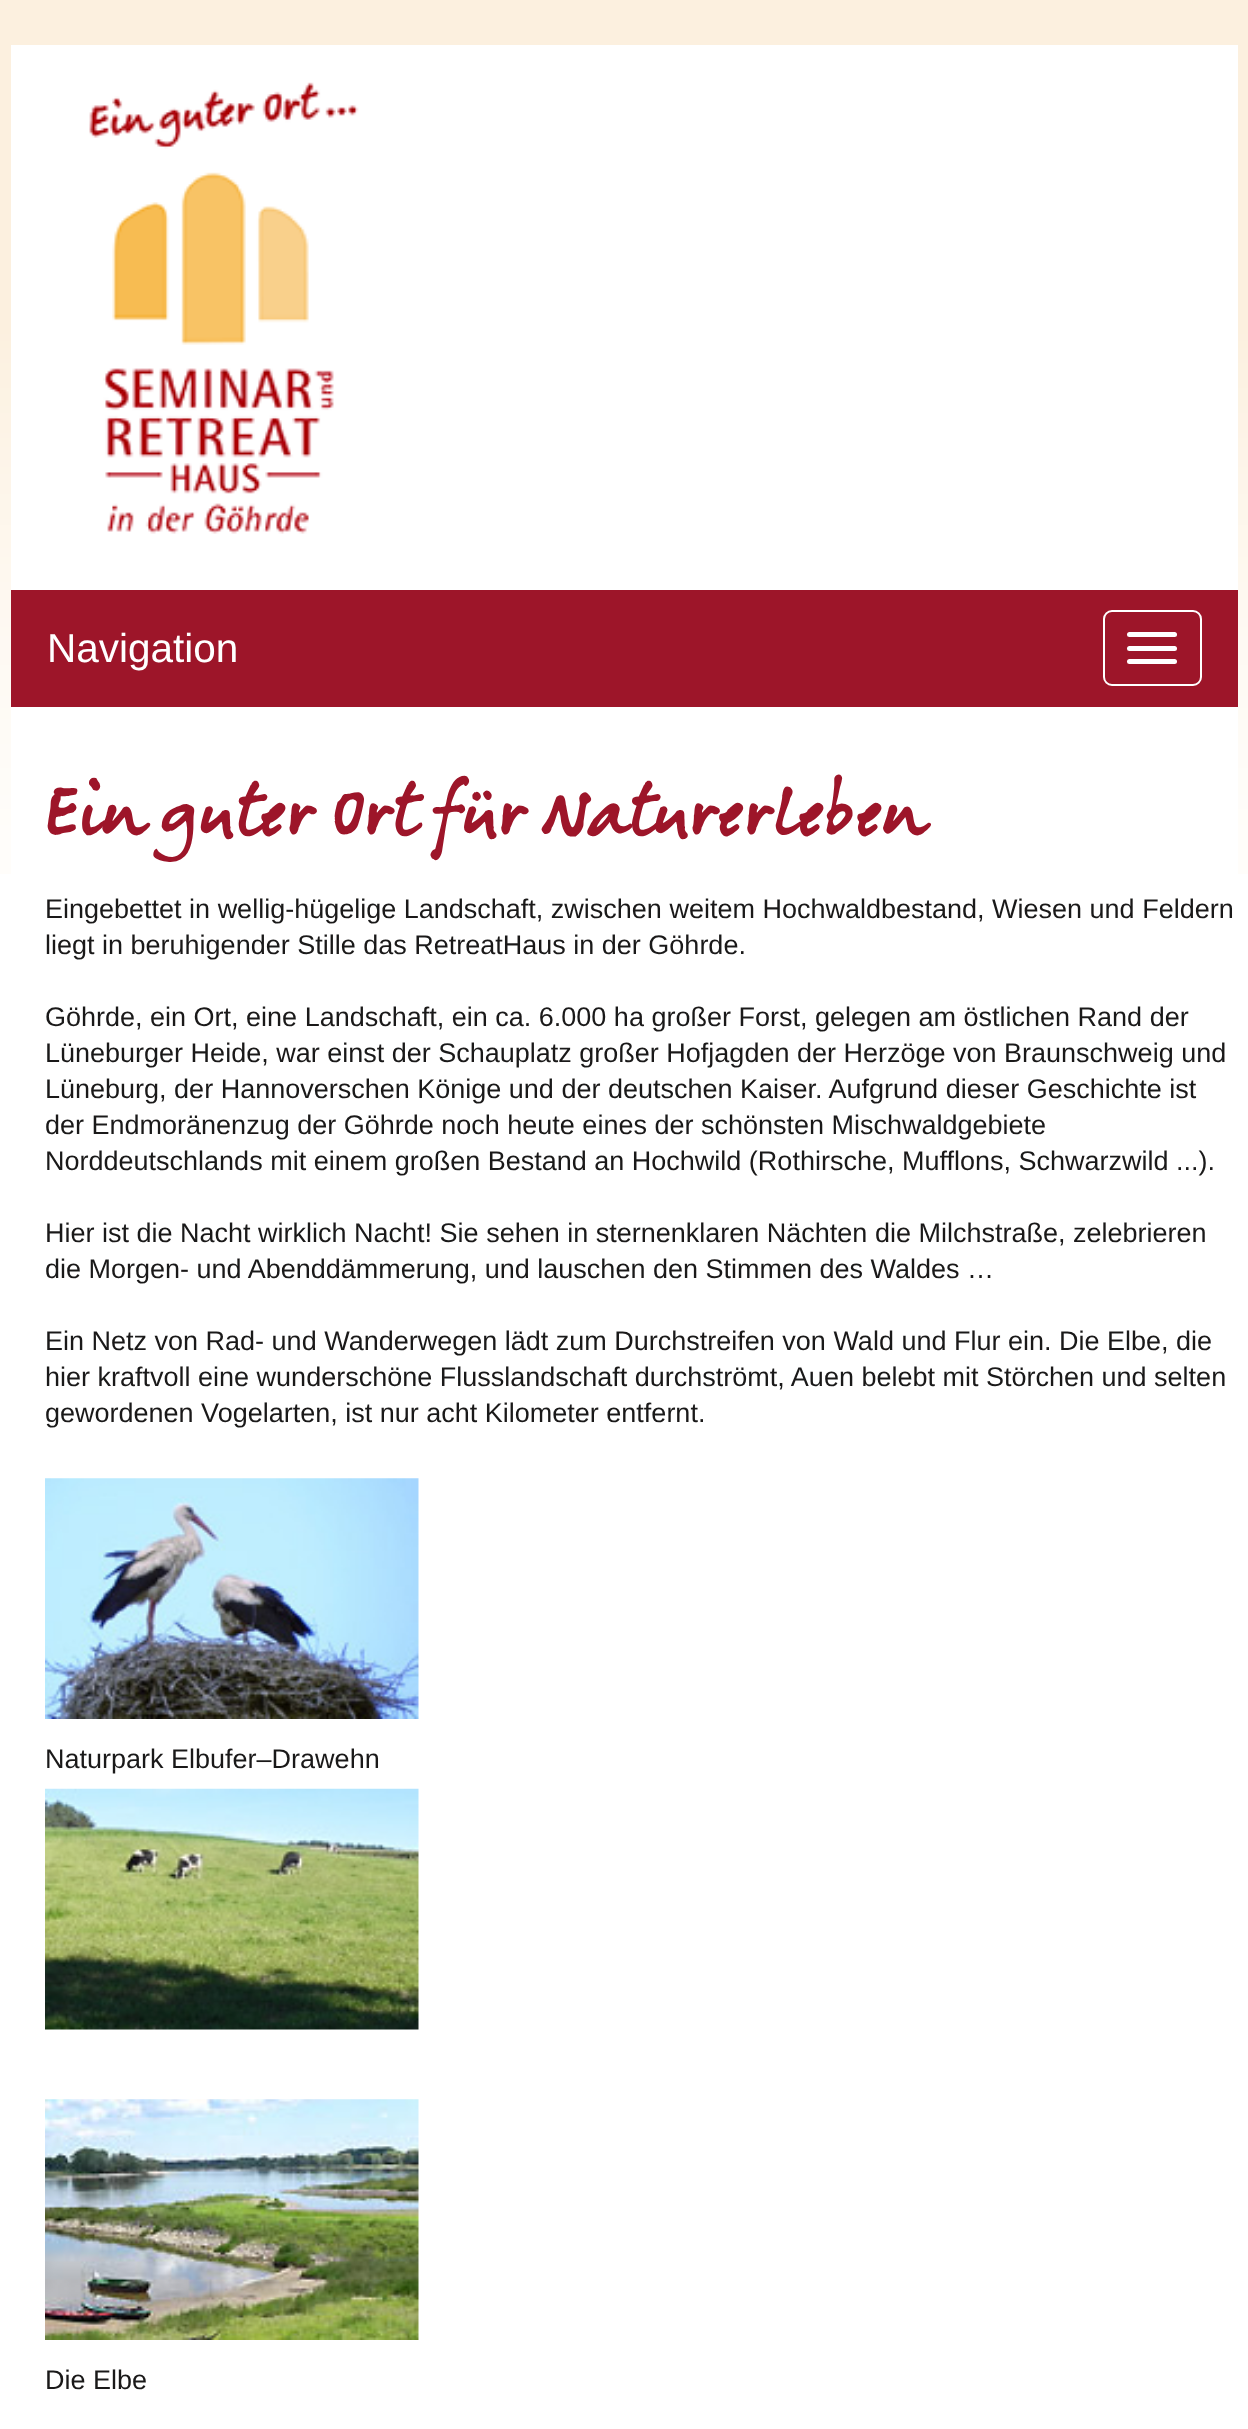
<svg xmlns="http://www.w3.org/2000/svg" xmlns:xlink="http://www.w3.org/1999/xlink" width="1248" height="2429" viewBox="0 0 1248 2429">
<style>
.cls-1{font:40.5px Liberation Sans;fill:#ffffff}
.cls-2{font:63px 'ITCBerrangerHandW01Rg';fill:#9d1529}
.cls-3{font:27px Liberation Sans;fill:#1a1919}
</style>
<rect width="100%" height="100%" fill="#ffffff"/>
<image xlink:href="image0.png" x="0" y="0" width="1248" height="874"/>
<rect fill="#ffffff" x="11" y="45" width="1227" height="829"/>
<image xlink:href="image1.png" x="89" y="82" width="270" height="452"/>
<rect fill="#9d1529" x="11" y="590" width="1227" height="117"/>
<rect fill="none" stroke="#ffffff" stroke-width="2" x="1104" y="611" width="97" height="74" rx="8"/>
<rect fill="#ffffff" x="1127" y="632" width="50" height="5" rx="2.5"/>
<rect fill="#ffffff" x="1127" y="646" width="50" height="5" rx="2.5"/>
<rect fill="#ffffff" x="1127" y="659" width="50" height="5" rx="2.5"/>
<image xlink:href="image2.png" x="45" y="1478" width="374" height="241"/>
<image xlink:href="image3.png" x="45" y="1788" width="374" height="242"/>
<image xlink:href="image4.png" x="45" y="2099" width="374" height="241"/>
<text class="cls-1" x="47" y="662">Navigation</text>
<text class="cls-2" x="45" y="833">Ein guter Ort für Naturerleben</text>
<text class="cls-3"><tspan x="45" y="918">Eingebettet in wellig-hügelige Landschaft, zwischen weitem Hochwaldbestand, Wiesen und Feldern</tspan><tspan x="45" y="954">liegt in beruhigender Stille das RetreatHaus in der Göhrde.</tspan></text>
<text class="cls-3"><tspan x="45" y="1026">Göhrde, ein Ort, eine Landschaft, ein ca. 6.000 ha großer Forst, gelegen am östlichen Rand der</tspan><tspan x="45" y="1062">Lüneburger Heide, war einst der Schauplatz großer Hofjagden der Herzöge von Braunschweig und</tspan><tspan x="45" y="1098">Lüneburg, der Hannoverschen Könige und der deutschen Kaiser. Aufgrund dieser Geschichte ist</tspan><tspan x="45" y="1134">der Endmoränenzug der Göhrde noch heute eines der schönsten Mischwaldgebiete</tspan><tspan x="45" y="1170">Norddeutschlands mit einem großen Bestand an Hochwild (Rothirsche, Mufflons, Schwarzwild ...).</tspan></text>
<text class="cls-3"><tspan x="45" y="1242">Hier ist die Nacht wirklich Nacht! Sie sehen in sternenklaren Nächten die Milchstraße, zelebrieren</tspan><tspan x="45" y="1278">die Morgen- und Abenddämmerung, und lauschen den Stimmen des Waldes …</tspan></text>
<text class="cls-3"><tspan x="45" y="1350">Ein Netz von Rad- und Wanderwegen lädt zum Durchstreifen von Wald und Flur ein. Die Elbe, die</tspan><tspan x="45" y="1386">hier kraftvoll eine wunderschöne Flusslandschaft durchströmt, Auen belebt mit Störchen und selten</tspan><tspan x="45" y="1422">gewordenen Vogelarten, ist nur acht Kilometer entfernt.</tspan></text>
<text class="cls-3" x="45" y="1768">Naturpark Elbufer–Drawehn</text>
<text class="cls-3" x="45" y="2389">Die Elbe</text>
</svg>
